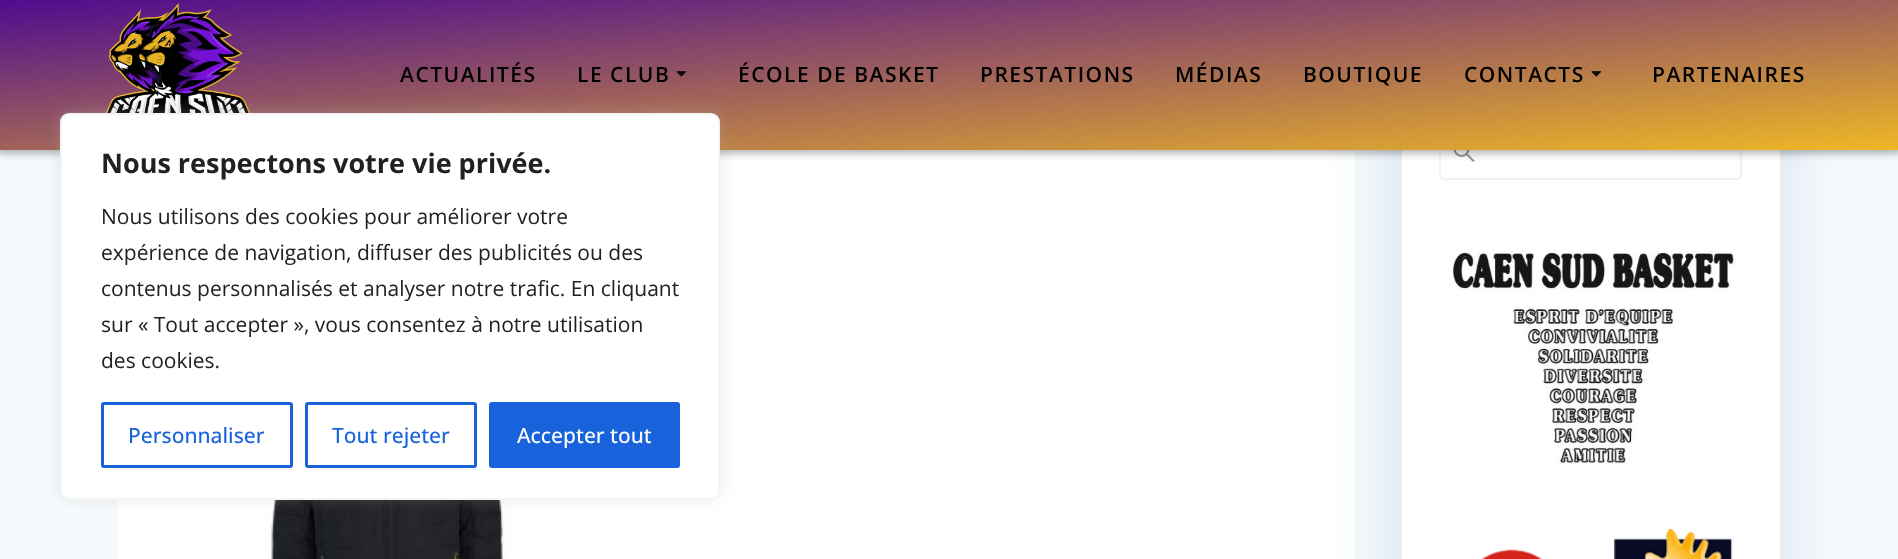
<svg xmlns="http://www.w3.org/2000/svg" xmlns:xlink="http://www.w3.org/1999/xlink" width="1898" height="559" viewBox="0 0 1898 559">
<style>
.cls-1{font:600 21px Open Sans;letter-spacing:1.5px;fill:#000000}
.cls-2{font:bold 27px Open Sans;fill:#212121}
.cls-3{font:21px Open Sans;fill:#212121}
.cls-4{font:500 21px Open Sans;fill:#1863dc}
.cls-5{font:500 21px Open Sans;fill:#ffffff}
</style>
<defs>
<linearGradient id="g1" gradientUnits="userSpaceOnUse" x1="938" y1="-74" x2="961" y2="224"><stop offset="0" stop-color="#4e0b8f"/><stop offset="1" stop-color="#efb825"/></linearGradient>
</defs>
<rect width="100%" height="100%" fill="#f5fafd"/>
<rect fill="#ffffff" x="117" y="150" width="1238" height="409"/>
<image xlink:href="image0.png" x="265" y="500" width="246" height="59"/>
<rect fill="#234598" fill-opacity="0.15" filter="blur(34px)" x="1400" y="96" width="382" height="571" rx="6"/>
<rect fill="#ffffff" x="1402" y="150" width="378" height="409"/>
<rect fill="none" stroke="#ececec" stroke-width="2" x="1401" y="84" width="380" height="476"/>
<image xlink:href="image1.png" x="1453" y="150" width="22" height="12"/>
<rect fill="none" stroke="#f1f1f1" stroke-width="2" x="1440" y="121" width="301" height="58" rx="4"/>
<image xlink:href="image2.png" x="1450" y="250" width="285" height="215"/>
<image xlink:href="image3.png" x="1481" y="529" width="252" height="30"/>
<rect fill="#000000" fill-opacity="0.33" filter="blur(4px)" x="-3" y="-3" width="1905" height="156"/>
<rect fill="url(#g1)" x="0" y="0" width="1898" height="150"/>
<image xlink:href="image4.png" x="105" y="3" width="146" height="110"/>
<image xlink:href="image5.png" x="676" y="71" width="10" height="6"/>
<image xlink:href="image6.png" x="1591" y="71" width="10" height="6"/>
<rect fill="#acabab" fill-opacity="0.3" filter="blur(7.5px)" x="60" y="111" width="660" height="387" rx="9"/>
<rect fill="#ffffff" stroke="#f4f4f4" stroke-width="2" x="61" y="114" width="658" height="385" rx="8"/>
<rect fill="none" stroke="#1863dc" stroke-width="3" x="102.5" y="403.5" width="189" height="63" rx="1.5"/>
<rect fill="none" stroke="#1863dc" stroke-width="3" x="306.5" y="403.5" width="169" height="63" rx="1.5"/>
<rect fill="#1863dc" stroke="#1863dc" stroke-width="3" x="490.5" y="403.5" width="188" height="63" rx="1.5"/>
<text class="cls-1" x="400" y="82">ACTUALITÉS</text>
<text class="cls-1" x="577" y="82">LE CLUB</text>
<text class="cls-1" x="738" y="82">ÉCOLE DE BASKET</text>
<text class="cls-1" x="980" y="82">PRESTATIONS</text>
<text class="cls-1" x="1175" y="82">MÉDIAS</text>
<text class="cls-1" x="1303" y="82">BOUTIQUE</text>
<text class="cls-1" x="1464" y="82">CONTACTS</text>
<text class="cls-1" x="1652" y="82">PARTENAIRES</text>
<text class="cls-2" x="101" y="173">Nous respectons votre vie privée.</text>
<text class="cls-3"><tspan x="101" y="224">Nous utilisons des cookies pour améliorer votre</tspan><tspan x="101" y="260">expérience de navigation, diffuser des publicités ou des</tspan><tspan x="101" y="296">contenus personnalisés et analyser notre trafic. En cliquant</tspan><tspan x="101" y="332">sur « Tout accepter », vous consentez à notre utilisation</tspan><tspan x="101" y="368">des cookies.</tspan></text>
<text class="cls-4" x="128" y="443">Personnaliser</text>
<text class="cls-4" x="332" y="443">Tout rejeter</text>
<text class="cls-5" x="517" y="443">Accepter tout</text>
</svg>
